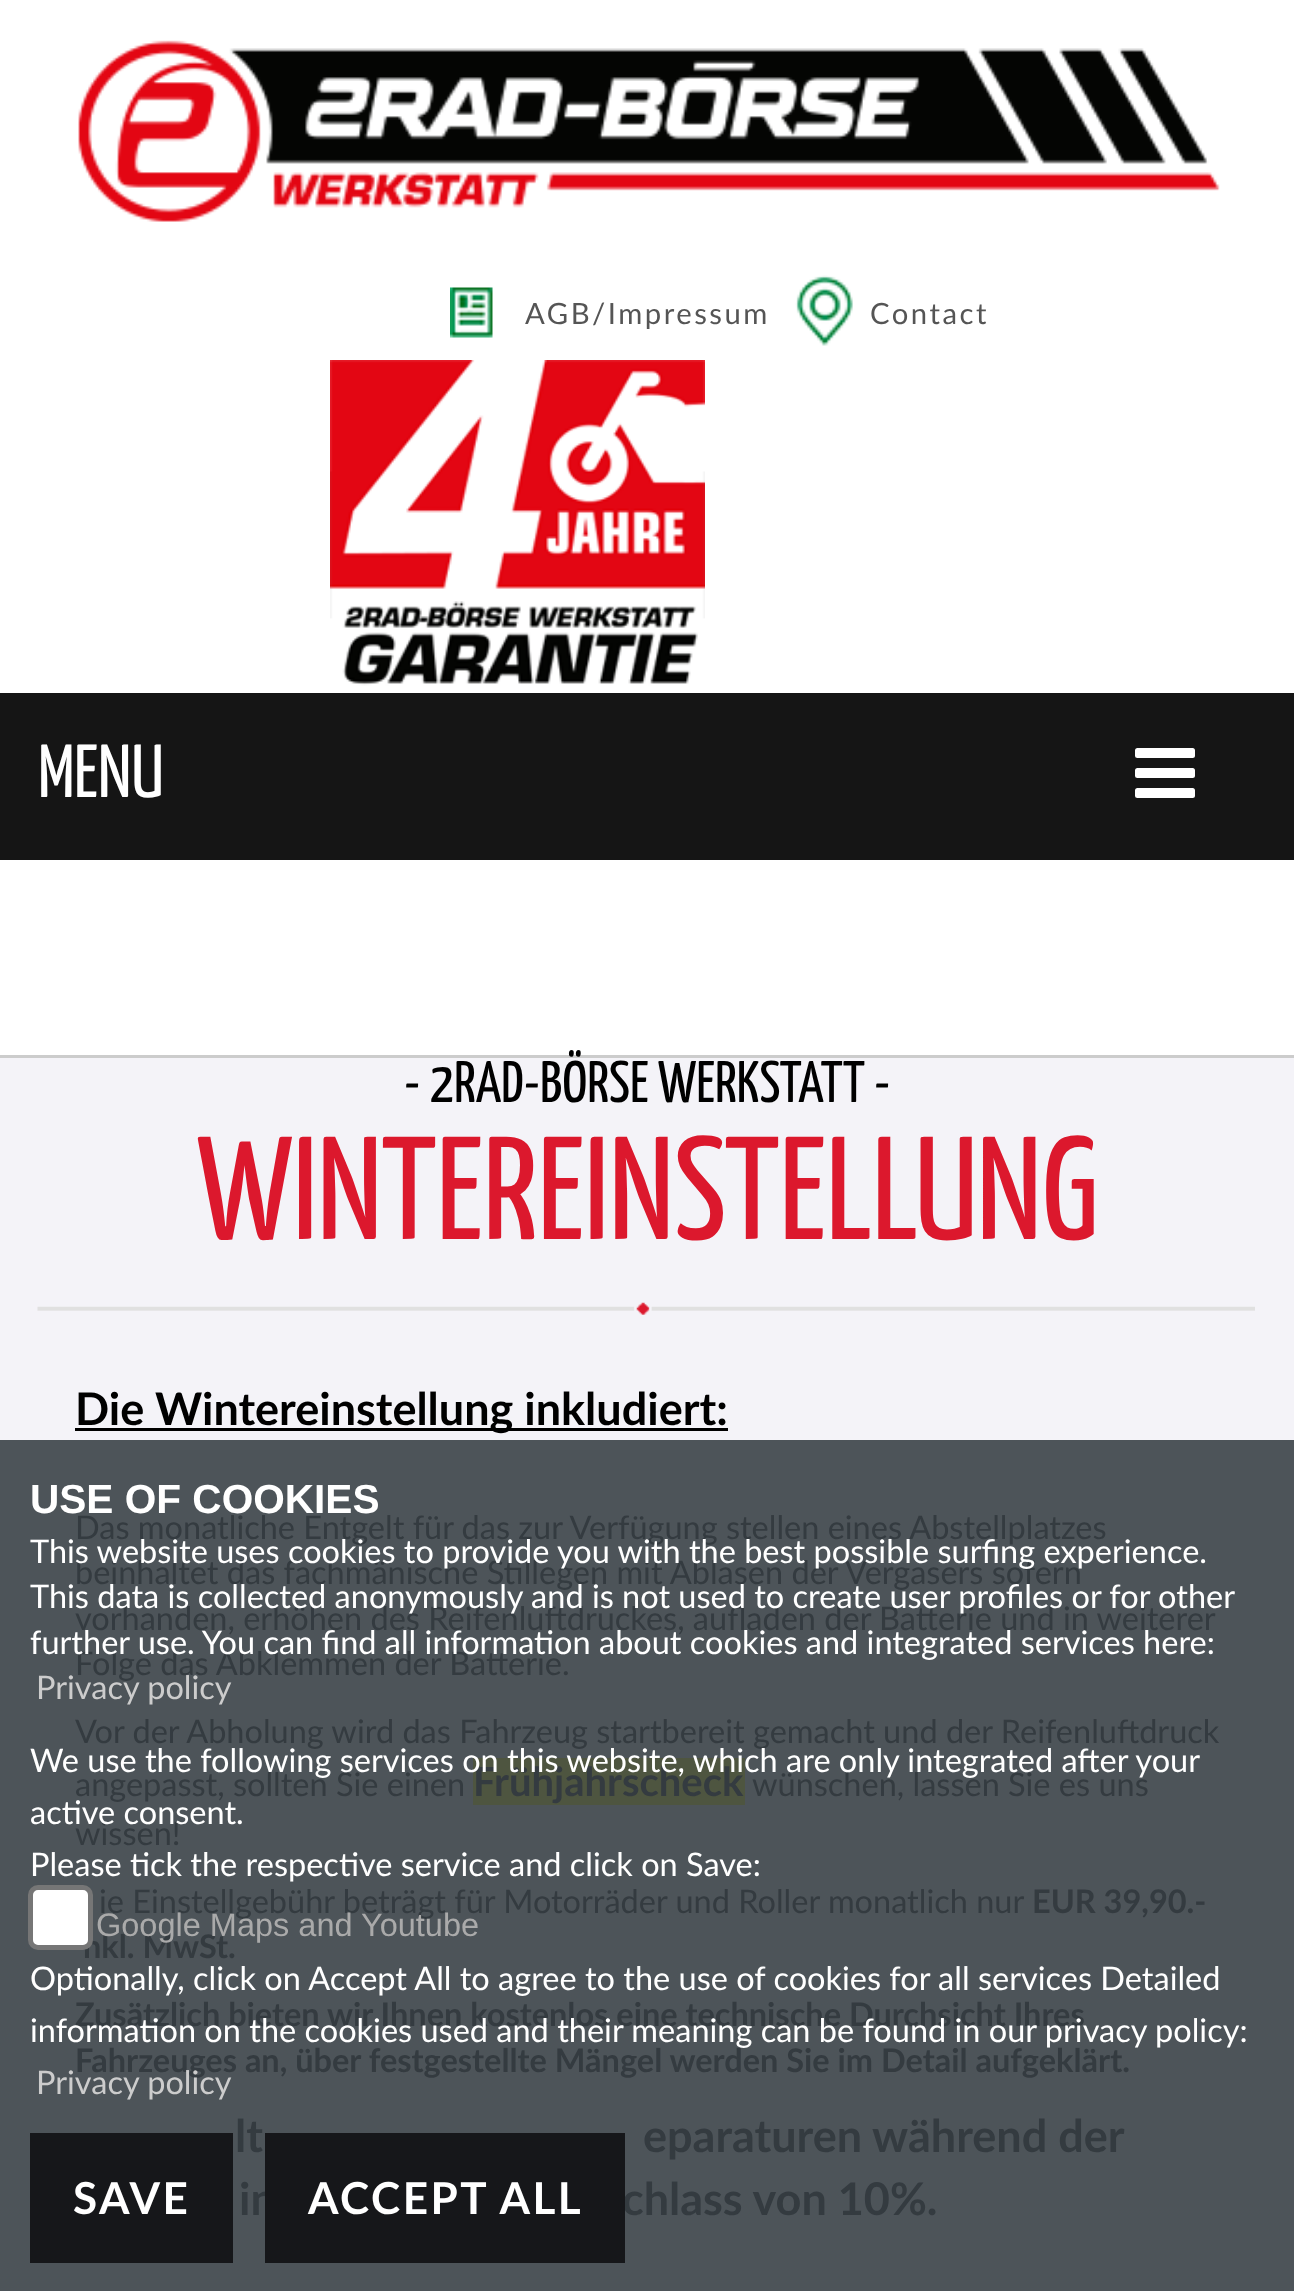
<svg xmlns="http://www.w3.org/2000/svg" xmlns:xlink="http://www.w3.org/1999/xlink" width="1294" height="2291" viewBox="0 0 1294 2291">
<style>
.cls-1{font:29.25px Lato;letter-spacing:2.5px;fill:#555555}
.cls-2{font:75px Yanone Kaffeesatz;fill:#ffffff}
.cls-3{font:58.5px Yanone Kaffeesatz;fill:#000000}
.cls-4{font:146.25px Yanone Kaffeesatz;fill:#dc182d}
.cls-5{font:bold 45px Lato;fill:#000000}
.cls-6{font:32.5px Lato;fill:#343b40}
.cls-7{font:bold 40px Lato;fill:#343b40}
.cls-8{font:bold 32.5px Lato;fill:#343b40}
.cls-9{font:bold 45px Lato;fill:#343b40}
.cls-10{font:bold 40.6px Liberation Sans;fill:#ffffff}
.cls-11{font:32.5px Lato;fill:#ffffff}
.cls-12{font:32.5px Lato;fill:#cccccc}
.cls-13{font:32.5px Liberation Sans;fill:#aaaaaa}
.cls-14{font:bold 44px Lato;letter-spacing:2.5px;fill:#ffffff}
</style>
<rect width="100%" height="100%" fill="#f4f3f8"/>
<rect fill="#4d5459" x="0" y="1440" width="1294" height="851"/>
<rect fill="#ffffff" x="0" y="0" width="1294" height="693"/>
<image xlink:href="image0.png" x="78" y="40" width="1142" height="182"/>
<image xlink:href="image1.png" x="450" y="287" width="43" height="51"/>
<image xlink:href="image2.png" x="795" y="275" width="58" height="71"/>
<image xlink:href="image3.png" x="330" y="360" width="375" height="326"/>
<rect fill="#151515" x="0" y="693" width="1294" height="167"/>
<rect fill="#ffffff" x="1135" y="748" width="60" height="10" rx="2.5"/>
<rect fill="#ffffff" x="1135" y="768" width="60" height="10" rx="2.5"/>
<rect fill="#ffffff" x="1135" y="788" width="60" height="10" rx="2.5"/>
<rect fill="#ffffff" x="0" y="860" width="1294" height="195"/>
<rect fill="#cccccc" x="0" y="1055" width="1294" height="3"/>
<image xlink:href="image4.png" x="37" y="1302" width="1218" height="13"/>
<rect fill="#000000" x="75" y="1428" width="653" height="3"/>
<rect fill="#4e5540" x="473" y="1758" width="272" height="47"/>
<rect fill="#16171a" x="30" y="2133" width="203" height="130"/>
<text class="cls-1" x="525" y="324">AGB/Impressum</text>
<text class="cls-1" x="870" y="324">Contact</text>
<text class="cls-2" x="38" y="797">MENU</text>
<text class="cls-3" x="404" y="1102">- 2RAD-BÖRSE WERKSTATT -</text>
<text class="cls-4" x="197" y="1239">WINTEREINSTELLUNG</text>
<text class="cls-5" x="75" y="1425">Die Wintereinstellung inkludiert:</text>
<text class="cls-6"><tspan x="75" y="1539">Das monatliche Entgelt für das zur Verfügung stellen eines Abstellplatzes</tspan><tspan x="75" y="1584">beinhaltet das fachmänische Stillegen mit Ablasen der Vergasers sofern</tspan><tspan x="75" y="1630">vorhanden, erhöhen des Reifenluftdruckes, aufladen der Batterie und in weiterer</tspan><tspan x="75" y="1675">Folge das Abklemmen der Batterie.</tspan></text>
<text class="cls-6"><tspan x="75" y="1743">Vor der Abholung wird das Fahrzeug startbereit gemacht und der Reifenluftdruck</tspan><tspan x="75" y="1796">angepasst, sollten Sie einen</tspan></text>
<text class="cls-7" x="473" y="1796">Frühjahrscheck</text>
<text class="cls-6" x="752" y="1796">wünschen, lassen Sie es uns</text>
<text class="cls-6" x="75" y="1845">wissen!</text>
<text class="cls-6" x="99" y="1913">ie Einstellgebühr beträgt für Motorräder und Roller monatlich nur</text>
<text class="cls-8" x="1032" y="1913">EUR 39,90.-</text>
<text class="cls-8" x="83" y="1958">nkl. MwSt.</text>
<text class="cls-8"><tspan x="75" y="2026">Zusätzlich bieten wir Ihnen kostenlos eine technische Durchsicht Ihres</tspan><tspan x="75" y="2072">Fahrzeuges an, über festgestellte Mängel werden Sie im Detail aufgeklärt.</tspan></text>
<text class="cls-9" x="235" y="2152">lt</text>
<text class="cls-9" x="643" y="2152">eparaturen während der</text>
<text class="cls-9" x="239" y="2215">in</text>
<text class="cls-9" x="622" y="2215">chlass von 10%.</text>
<text class="cls-10" x="30" y="1513">USE OF COOKIES</text>
<text class="cls-11"><tspan x="30" y="1563">This website uses cookies to provide you with the best possible surfing experience.</tspan><tspan x="30" y="1608">This data is collected anonymously and is not used to create user profiles or for other</tspan><tspan x="30" y="1654">further use. You can find all information about cookies and integrated services here:</tspan></text>
<text class="cls-12" x="36" y="1699">Privacy policy</text>
<text class="cls-11"><tspan x="30" y="1772">We use the following services on this website, which are only integrated after your</tspan><tspan x="30" y="1824">active consent.</tspan><tspan x="30" y="1876">Please tick the respective service and click on Save:</tspan></text>
<rect fill="#ffffff" stroke="#767676" stroke-width="5" x="30.5" y="1887.5" width="60" height="60" rx="7.5"/>
<text class="cls-13" x="96" y="1936">Google Maps and Youtube</text>
<text class="cls-11"><tspan x="30" y="1990">Optionally, click on Accept All to agree to the use of cookies for all services Detailed</tspan><tspan x="30" y="2042">information on the cookies used and their meaning can be found in our privacy policy:</tspan></text>
<text class="cls-12" x="36" y="2094">Privacy policy</text>
<text class="cls-14" x="73" y="2214">SAVE</text>
<rect fill="#16171a" x="265" y="2133" width="360" height="130"/>
<text class="cls-14" x="308" y="2214">ACCEPT ALL</text>
</svg>
